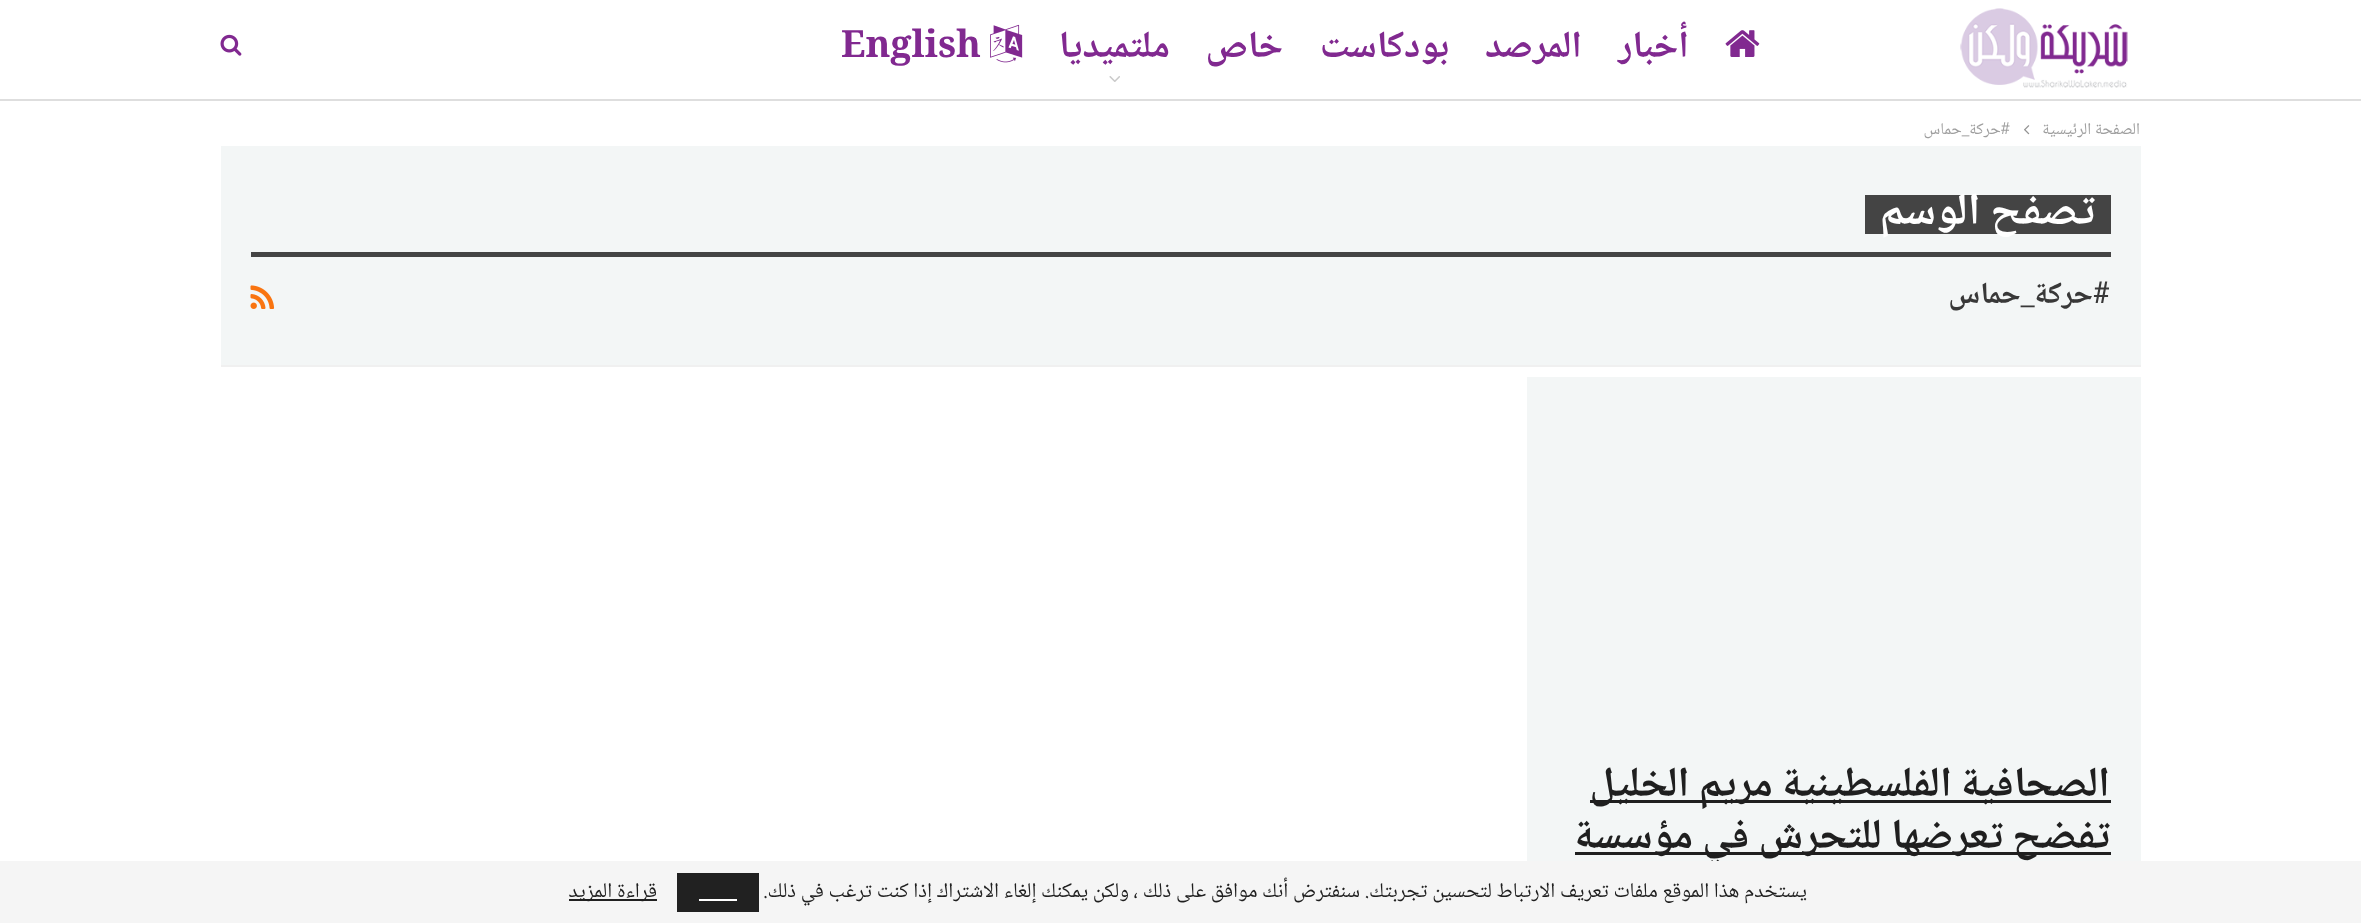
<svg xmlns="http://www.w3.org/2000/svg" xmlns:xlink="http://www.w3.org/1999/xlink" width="2361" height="923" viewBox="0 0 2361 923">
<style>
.cls-1{font:bold 37.5px Noto Naskh Arabic;direction:rtl;fill:#812990}
.cls-2{font:bold 37.5px Noto Naskh Arabic;fill:#812990}
.cls-3{font:16.5px Noto Naskh Arabic;direction:rtl;fill:#9e9e9e}
.cls-4{font:bold 45px Noto Naskh Arabic;direction:rtl;fill:#ffffff}
.cls-5{font:bold 30px Noto Naskh Arabic;direction:rtl;fill:#383838}
.cls-6{font:bold 42px Noto Naskh Arabic;direction:rtl;fill:#1f1f1f}
.cls-7{font:21px Noto Naskh Arabic;direction:rtl;fill:#1f1f1f}
</style>
<rect width="100%" height="100%" fill="#ffffff"/>
<rect fill="#dedede" x="0" y="99" width="2361" height="2"/>
<image xlink:href="image0.png" x="1960" y="8" width="168" height="80"/>
<image xlink:href="image1.png" x="1725" y="30" width="35" height="27"/>
<image xlink:href="image2.png" x="1109" y="76" width="11" height="6"/>
<image xlink:href="image3.png" x="990" y="24" width="33" height="39"/>
<image xlink:href="image4.png" x="220" y="34" width="22" height="22"/>
<image xlink:href="image5.png" x="2024" y="125" width="6" height="10"/>
<rect fill="#f3f6f6" x="221" y="146" width="1920" height="219"/>
<rect fill="#f0f0f0" x="221" y="365" width="1920" height="2"/>
<rect fill="#444444" x="1865" y="195" width="246" height="39"/>
<rect fill="#444444" x="251" y="252" width="1860" height="5"/>
<image xlink:href="image6.png" x="250" y="285" width="25" height="24"/>
<rect fill="#f3f6f6" x="1527" y="377" width="614" height="484"/>
<rect fill="#1f1f1f" x="1590" y="800" width="521" height="3"/>
<rect fill="#1f1f1f" x="1575" y="852" width="536" height="3"/>
<text class="cls-1" x="1689" y="57">أخبار</text>
<text class="cls-1" x="1582" y="57">المرصد</text>
<text class="cls-1" x="1449" y="57">بودكاست</text>
<text class="cls-1" x="1283" y="57">خاص</text>
<text class="cls-1" x="1170" y="57">ملتميديا</text>
<text class="cls-2" x="841" y="57">English</text>
<text class="cls-3" x="2140" y="134">الصفحة الرئيسية</text>
<text class="cls-3" x="2010" y="134">#حركة_حماس</text>
<text class="cls-4" x="2095" y="224">تصفح الوسم</text>
<text class="cls-5" x="2110" y="303">#حركة_حماس</text>
<text class="cls-6"><tspan x="2110" y="796">الصحافية الفلسطينية مريم الخليل</tspan><tspan x="2110" y="848">تفضح تعرضها للتحرش في مؤسسة</tspan></text>
<rect fill="#f5f5f5" x="0" y="861" width="2361" height="62"/>
<text class="cls-7" x="1807" y="897">يستخدم هذا الموقع ملفات تعريف الارتباط لتحسين تجربتك. سنفترض أنك موافق على ذلك ، ولكن يمكنك إلغاء الاشتراك إذا كنت ترغب في ذلك.</text>
<rect fill="#212121" x="677" y="873" width="82" height="39"/>
<rect fill="#ffffff" x="699" y="899" width="38" height="2"/>
<rect fill="#212121" x="569" y="899" width="88" height="2"/>
<text class="cls-7" x="657" y="897">قراءة المزيد</text>
</svg>
